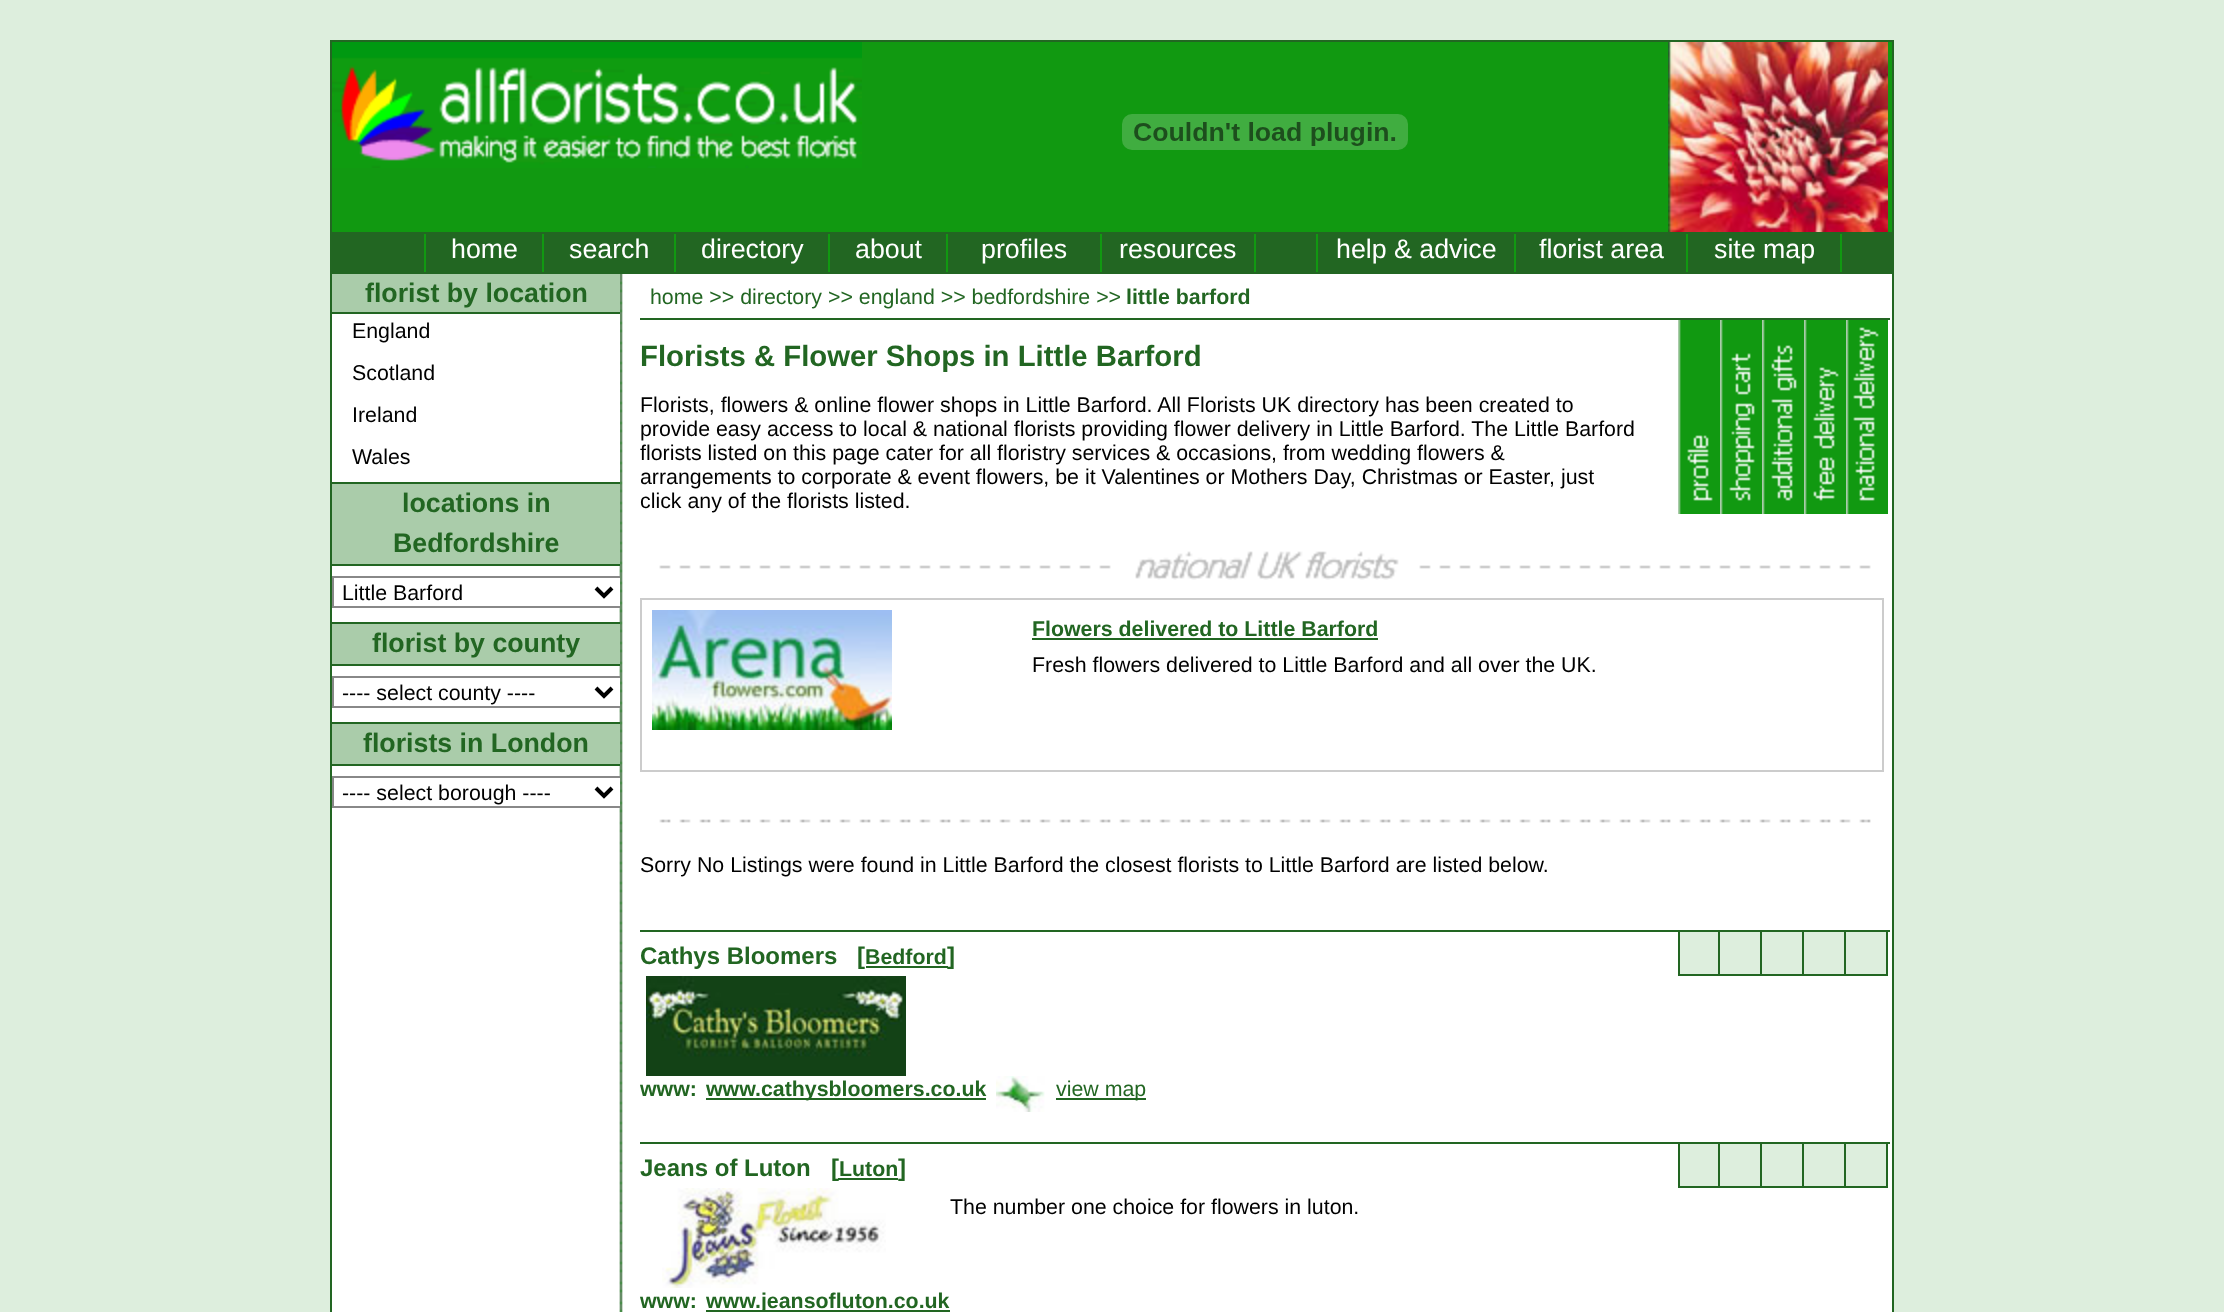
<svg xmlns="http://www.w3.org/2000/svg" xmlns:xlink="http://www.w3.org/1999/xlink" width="2224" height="1312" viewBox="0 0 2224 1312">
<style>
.cls-1{font:26.75px Liberation Sans;fill:#ffffff}
.cls-2{font:bold 26.75px Liberation Sans;fill:#226622}
.cls-3{font:21.35px Liberation Sans;fill:#000000}
.cls-4{font:21.35px Liberation Sans;fill:#226622}
.cls-5{font:bold 21.35px Liberation Sans;fill:#226622}
.cls-6{font:bold 29.3px Liberation Sans;fill:#226622}
.cls-7{font:bold 24px Liberation Sans;fill:#226622}
</style>
<defs>
<clipPath id="clip1"><rect x="332" y="274" width="288" height="616"/></clipPath>
</defs>
<rect width="100%" height="100%" fill="#ddeedd"/>
<rect fill="#ffffff" x="332" y="274" width="1560" height="1038"/>
<rect fill="none" stroke="#226622" stroke-width="2" x="331" y="41" width="1562" height="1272"/>
<rect fill="#119911" x="332" y="42" width="1560" height="190"/>
<image xlink:href="image0.png" x="332" y="42" width="530" height="126"/>
<image xlink:href="image1.png" x="1122" y="114" width="286" height="36"/>
<image xlink:href="image2.png" x="1668" y="42" width="220" height="190"/>
<rect fill="#226622" x="332" y="232" width="1560" height="42"/>
<rect fill="#119911" x="424" y="234" width="2" height="38"/>
<rect fill="#119911" x="542" y="234" width="2" height="38"/>
<rect fill="#119911" x="674" y="234" width="2" height="38"/>
<rect fill="#119911" x="828" y="234" width="2" height="38"/>
<rect fill="#119911" x="946" y="234" width="2" height="38"/>
<rect fill="#119911" x="1100" y="234" width="2" height="38"/>
<rect fill="#119911" x="1254" y="234" width="2" height="38"/>
<rect fill="#119911" x="1316" y="234" width="2" height="38"/>
<rect fill="#119911" x="1514" y="234" width="2" height="38"/>
<rect fill="#119911" x="1686" y="234" width="2" height="38"/>
<rect fill="#119911" x="1840" y="234" width="2" height="38"/>
<image xlink:href="image3.png" x="619" y="274" width="4" height="1038"/>
<rect fill="#aaccaa" x="332" y="274" width="288" height="38"/>
<rect fill="#226622" x="332" y="312" width="288" height="2"/>
<rect fill="#ffffff" x="619" y="314" width="1" height="168"/>
<rect fill="#aaccaa" x="332" y="484" width="288" height="80"/>
<rect fill="#226622" x="332" y="482" width="288" height="2"/>
<rect fill="#226622" x="332" y="564" width="288" height="2"/>
<rect fill="#ffffff" x="619" y="578" width="1" height="28"/>
<g clip-path="url(#clip1)">
<rect fill="none" stroke="#888888" stroke-width="2" x="333" y="577" width="288" height="30"/>
</g>
<path fill="none" stroke="#000000" stroke-width="4" d="M596 588L604 596L612 588"/>
<rect fill="#aaccaa" x="332" y="624" width="288" height="40"/>
<rect fill="#226622" x="332" y="622" width="288" height="2"/>
<rect fill="#226622" x="332" y="664" width="288" height="2"/>
<rect fill="#ffffff" x="619" y="678" width="1" height="28"/>
<g clip-path="url(#clip1)">
<rect fill="none" stroke="#888888" stroke-width="2" x="333" y="677" width="288" height="30"/>
</g>
<path fill="none" stroke="#000000" stroke-width="4" d="M596 688L604 696L612 688"/>
<rect fill="#aaccaa" x="332" y="724" width="288" height="40"/>
<rect fill="#226622" x="332" y="722" width="288" height="2"/>
<rect fill="#226622" x="332" y="764" width="288" height="2"/>
<rect fill="#ffffff" x="619" y="778" width="1" height="28"/>
<g clip-path="url(#clip1)">
<rect fill="none" stroke="#888888" stroke-width="2" x="333" y="777" width="288" height="30"/>
</g>
<path fill="none" stroke="#000000" stroke-width="4" d="M596 788L604 796L612 788"/>
<rect fill="#226622" x="640" y="318" width="1250" height="2"/>
<image xlink:href="image4.png" x="1678" y="320" width="42" height="194"/>
<image xlink:href="image5.png" x="1720" y="320" width="42" height="194"/>
<image xlink:href="image6.png" x="1762" y="320" width="42" height="194"/>
<image xlink:href="image7.png" x="1804" y="320" width="42" height="194"/>
<image xlink:href="image8.png" x="1846" y="320" width="42" height="194"/>
<image xlink:href="image9.png" x="659" y="551" width="1212" height="29"/>
<rect fill="none" stroke="#cccccc" stroke-width="2" x="641" y="599" width="1242" height="172"/>
<image xlink:href="image10.png" x="652" y="610" width="240" height="120"/>
<rect fill="#226622" x="1032" y="638" width="346" height="2"/>
<image xlink:href="image11.png" x="659" y="819" width="1212" height="4"/>
<rect fill="#226622" x="640" y="930" width="1250" height="2"/>
<rect fill="#226622" x="866" y="966" width="82" height="2"/>
<rect fill="#ddeedd" x="1680" y="932" width="38" height="42"/>
<rect fill="#226622" x="1718" y="932" width="2" height="44"/>
<rect fill="#226622" x="1678" y="974" width="42" height="2"/>
<rect fill="#226622" x="1678" y="932" width="2" height="44"/>
<rect fill="#ddeedd" x="1720" y="932" width="40" height="42"/>
<rect fill="#226622" x="1760" y="932" width="2" height="44"/>
<rect fill="#226622" x="1720" y="974" width="42" height="2"/>
<rect fill="#ddeedd" x="1762" y="932" width="40" height="42"/>
<rect fill="#226622" x="1802" y="932" width="2" height="44"/>
<rect fill="#226622" x="1762" y="974" width="42" height="2"/>
<rect fill="#ddeedd" x="1804" y="932" width="40" height="42"/>
<rect fill="#226622" x="1844" y="932" width="2" height="44"/>
<rect fill="#226622" x="1804" y="974" width="42" height="2"/>
<rect fill="#ddeedd" x="1846" y="932" width="40" height="42"/>
<rect fill="#226622" x="1886" y="932" width="2" height="44"/>
<rect fill="#226622" x="1846" y="974" width="42" height="2"/>
<image xlink:href="image12.png" x="646" y="976" width="260" height="100"/>
<rect fill="#226622" x="706" y="1098" width="280" height="2"/>
<image xlink:href="image13.png" x="996" y="1076" width="49" height="36"/>
<rect fill="#226622" x="1056" y="1098" width="90" height="2"/>
<rect fill="#226622" x="640" y="1142" width="1250" height="2"/>
<rect fill="#226622" x="838" y="1178" width="60" height="2"/>
<rect fill="#ddeedd" x="1680" y="1144" width="38" height="42"/>
<rect fill="#226622" x="1718" y="1144" width="2" height="44"/>
<rect fill="#226622" x="1678" y="1186" width="42" height="2"/>
<rect fill="#226622" x="1678" y="1144" width="2" height="44"/>
<rect fill="#ddeedd" x="1720" y="1144" width="40" height="42"/>
<rect fill="#226622" x="1760" y="1144" width="2" height="44"/>
<rect fill="#226622" x="1720" y="1186" width="42" height="2"/>
<rect fill="#ddeedd" x="1762" y="1144" width="40" height="42"/>
<rect fill="#226622" x="1802" y="1144" width="2" height="44"/>
<rect fill="#226622" x="1762" y="1186" width="42" height="2"/>
<rect fill="#ddeedd" x="1804" y="1144" width="40" height="42"/>
<rect fill="#226622" x="1844" y="1144" width="2" height="44"/>
<rect fill="#226622" x="1804" y="1186" width="42" height="2"/>
<rect fill="#ddeedd" x="1846" y="1144" width="40" height="42"/>
<rect fill="#226622" x="1886" y="1144" width="2" height="44"/>
<rect fill="#226622" x="1846" y="1186" width="42" height="2"/>
<image xlink:href="image14.png" x="662" y="1188" width="224" height="100"/>
<rect fill="#226622" x="706" y="1310" width="244" height="2"/>
<text class="cls-1" x="451" y="258">home</text>
<text class="cls-1" x="569" y="258">search</text>
<text class="cls-1" x="701" y="258">directory</text>
<text class="cls-1" x="855" y="258">about</text>
<text class="cls-1" x="981" y="258">profiles</text>
<text class="cls-1" x="1119" y="258">resources</text>
<text class="cls-1" x="1336" y="258">help &amp; advice</text>
<text class="cls-1" x="1539" y="258">florist area</text>
<text class="cls-1" x="1714" y="258">site map</text>
<text class="cls-2" x="365" y="302">florist by location</text>
<text class="cls-3"><tspan x="352" y="338">England</tspan><tspan x="352" y="380">Scotland</tspan><tspan x="352" y="422">Ireland</tspan><tspan x="352" y="464">Wales</tspan></text>
<text class="cls-2" x="402" y="512">locations in</text>
<text class="cls-2" x="393" y="552">Bedfordshire</text>
<text class="cls-3" x="342" y="600">Little Barford</text>
<text class="cls-2" x="372" y="652">florist by county</text>
<text class="cls-3" x="342" y="700">---- select county ----</text>
<text class="cls-2" x="363" y="752">florists in London</text>
<text class="cls-3" x="342" y="800">---- select borough ----</text>
<text class="cls-4" x="650" y="304">home &gt;&gt; directory &gt;&gt; england &gt;&gt; bedfordshire &gt;&gt;</text>
<text class="cls-5" x="1126" y="304">little barford</text>
<text class="cls-6" x="640" y="366">Florists &amp; Flower Shops in Little Barford</text>
<text class="cls-3"><tspan x="640" y="412">Florists, flowers &amp; online flower shops in Little Barford. All Florists UK directory has been created to</tspan><tspan x="640" y="436">provide easy access to local &amp; national florists providing flower delivery in Little Barford. The Little Barford</tspan><tspan x="640" y="460">florists listed on this page cater for all floristry services &amp; occasions, from wedding flowers &amp;</tspan><tspan x="640" y="484">arrangements to corporate &amp; event flowers, be it Valentines or Mothers Day, Christmas or Easter, just</tspan><tspan x="640" y="508">click any of the florists listed.</tspan></text>
<text class="cls-5" x="1032" y="636">Flowers delivered to Little Barford</text>
<text class="cls-3" x="1032" y="672">Fresh flowers delivered to Little Barford and all over the UK.</text>
<text class="cls-3" x="640" y="872">Sorry No Listings were found in Little Barford the closest florists to Little Barford are listed below.</text>
<text class="cls-7" x="640" y="964">Cathys Bloomers</text>
<text class="cls-7" x="857" y="964">[</text>
<text class="cls-5" x="865" y="964">Bedford</text>
<text class="cls-7" x="947" y="964">]</text>
<text class="cls-5" x="640" y="1096">www:</text>
<text class="cls-5" x="706" y="1096">www.cathysbloomers.co.uk</text>
<text class="cls-4" x="1056" y="1096">view map</text>
<text class="cls-7" x="640" y="1176">Jeans of Luton</text>
<text class="cls-7" x="831" y="1176">[</text>
<text class="cls-5" x="839" y="1176">Luton</text>
<text class="cls-7" x="898" y="1176">]</text>
<text class="cls-3" x="950" y="1214">The number one choice for flowers in luton.</text>
<text class="cls-5" x="640" y="1308">www:</text>
<text class="cls-5" x="706" y="1308">www.jeansofluton.co.uk</text>
</svg>
